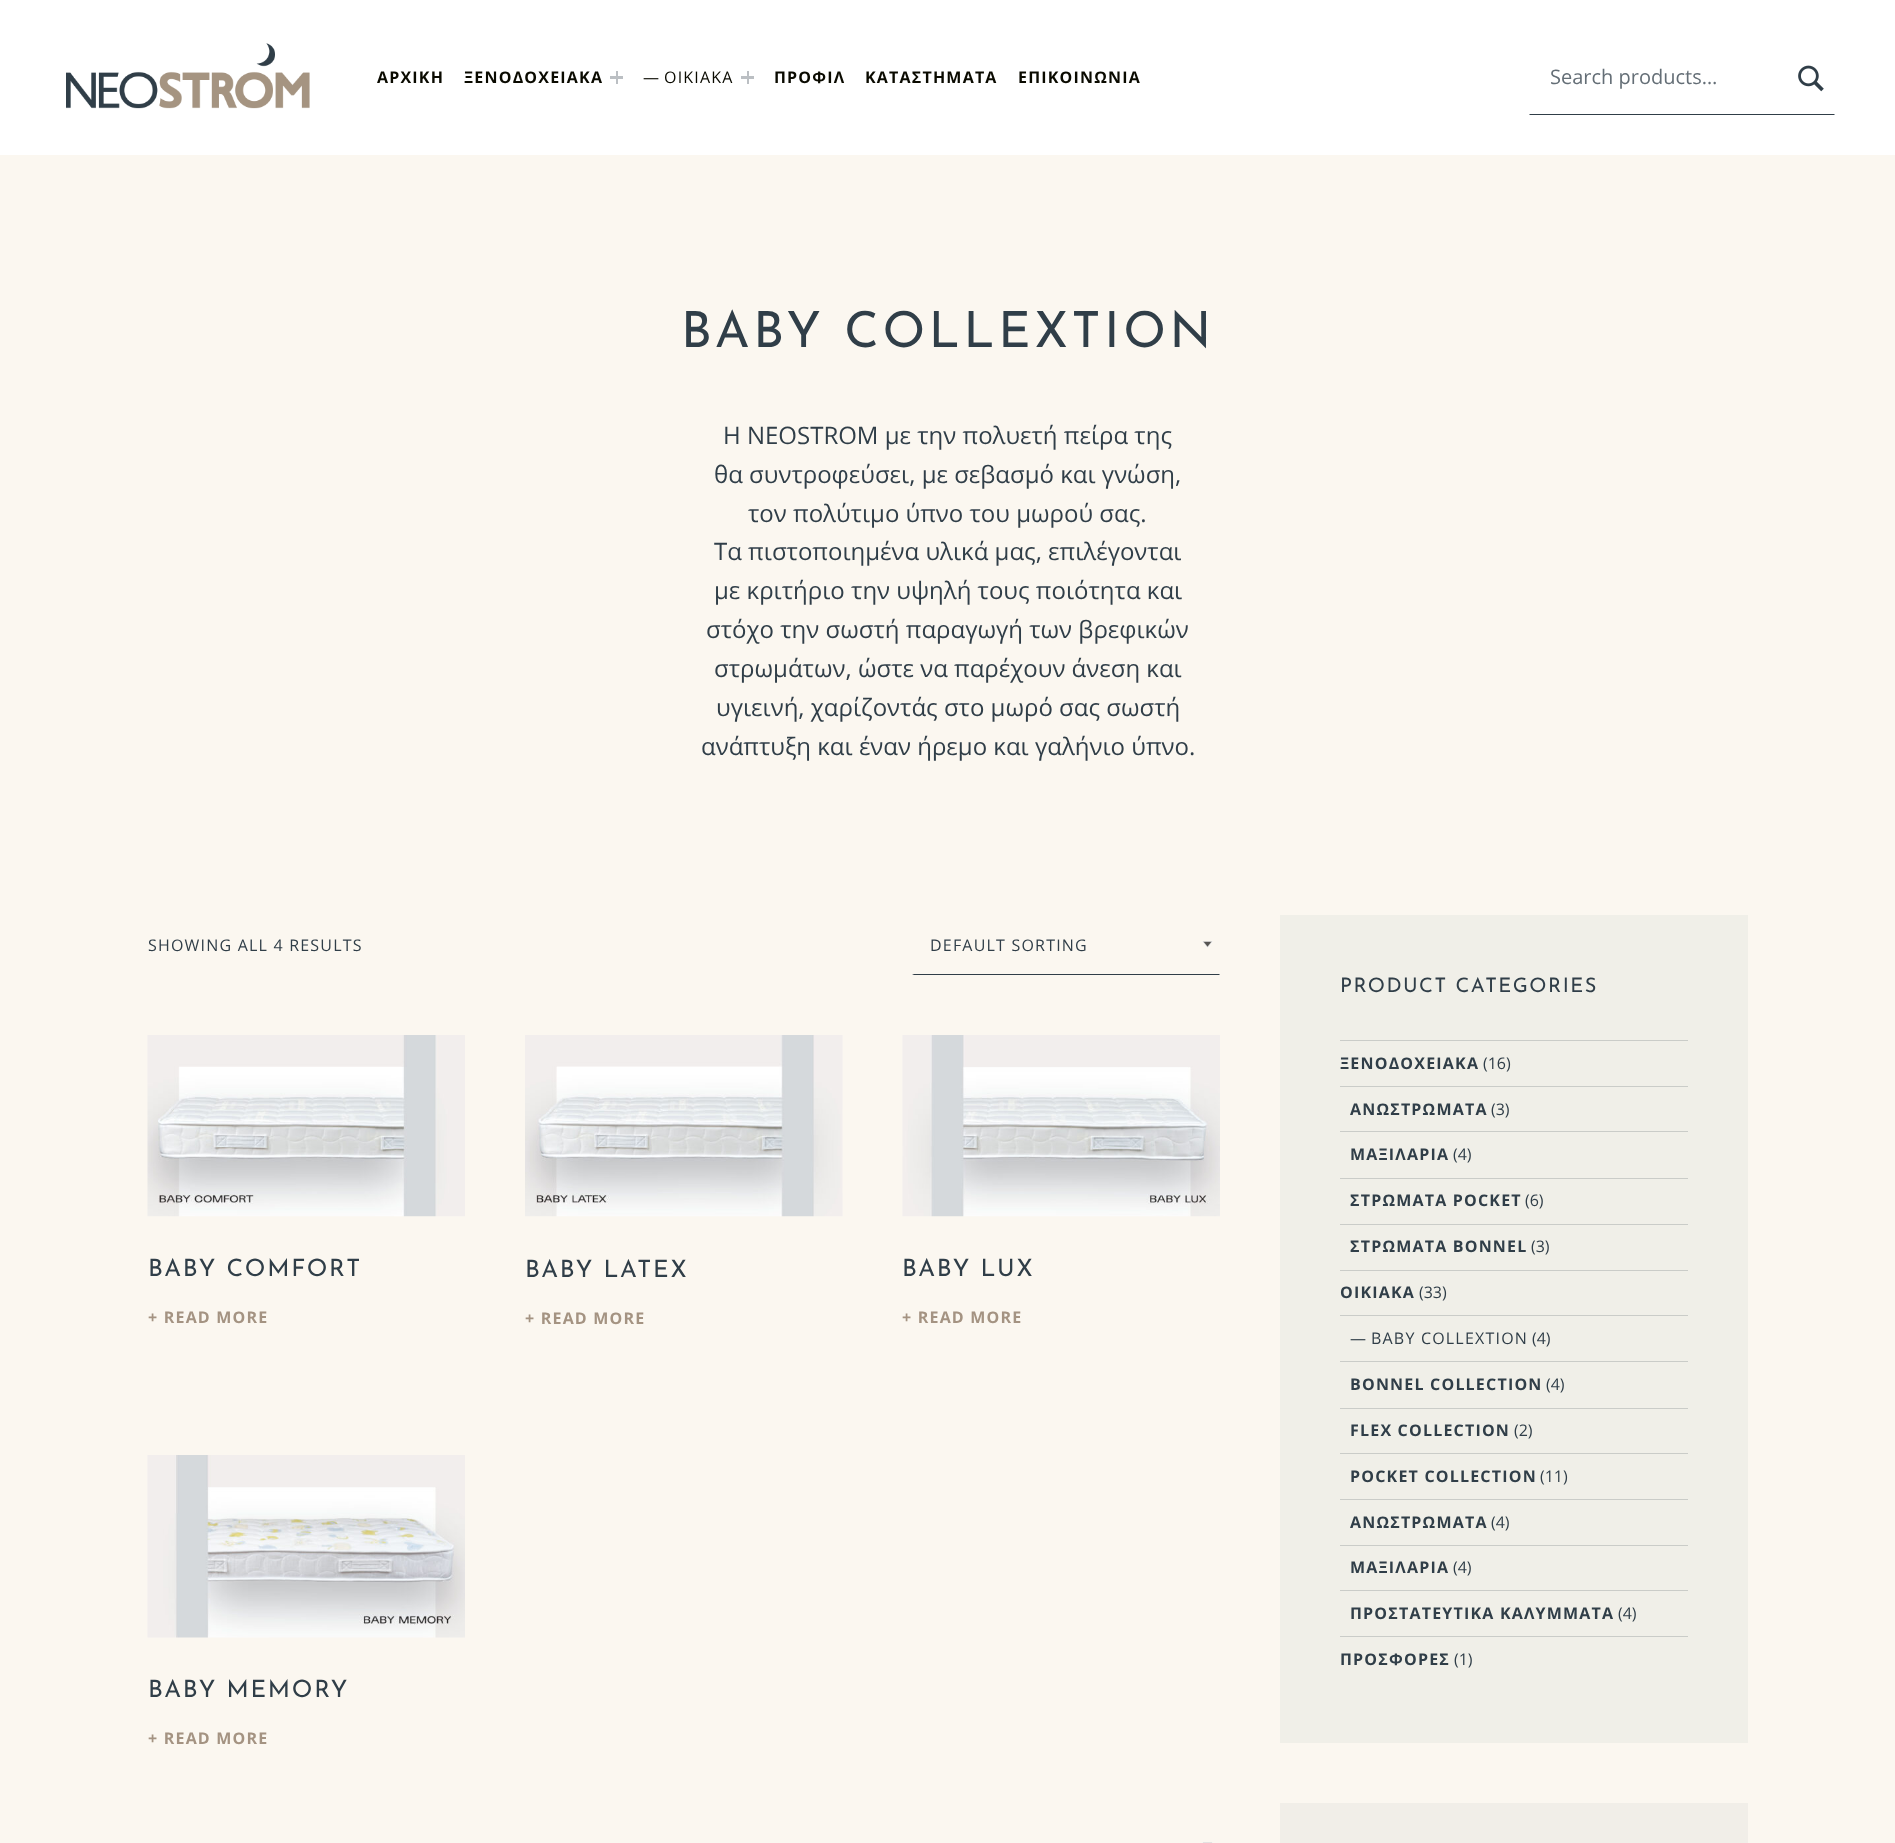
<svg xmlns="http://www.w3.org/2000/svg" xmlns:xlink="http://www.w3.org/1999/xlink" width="1895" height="1843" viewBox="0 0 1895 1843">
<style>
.cls-1{font:bold 16px Open Sans;letter-spacing:1.2px;fill:#0a0a00}
.cls-2{font:16px Open Sans;letter-spacing:1.2px;fill:#0a0a00}
.cls-3{font:20px Open Sans;fill:#646e76}
.cls-4{font:49.75px Josefin Sans;letter-spacing:3.75px;fill:#303e48}
.cls-5{font:24px Open Sans;fill:#303e48}
.cls-6{font:16px Open Sans;letter-spacing:1.2px;fill:#303e48}
.cls-7{font:24px Josefin Sans;letter-spacing:1.75px;fill:#303e48}
.cls-8{font:bold 16px Open Sans;letter-spacing:1.2px;fill:#a49382}
.cls-9{font:20px Josefin Sans;letter-spacing:1.5px;fill:#303e48}
.cls-10{font:bold 16px Open Sans;letter-spacing:1.2px;fill:#303e48}
.cls-11{font:16px Open Sans;fill:#303e48}
</style>
<rect width="100%" height="100%" fill="#ffffff"/>
<image xlink:href="image0.png" x="66" y="43" width="244" height="66"/>
<rect fill="#bbbfc3" x="610" y="76" width="13" height="3"/>
<rect fill="#bbbfc3" x="616" y="71" width="2" height="13"/>
<rect fill="#bbbfc3" x="741" y="76" width="13" height="3"/>
<rect fill="#bbbfc3" x="747" y="71" width="2" height="13"/>
<path fill="#303e48" d="M1835 115H1529L1530 114H1834Z"/>
<image xlink:href="image1.png" x="1798" y="65" width="26" height="27"/>
<rect fill="#fbf7f0" x="0" y="155" width="1895" height="1688"/>
<image xlink:href="image2.png" x="1202" y="941" width="11" height="7"/>
<path fill="#303e48" d="M1220 975H912L914 974H1219Z"/>
<image xlink:href="image3.png" x="147" y="1035" width="318" height="182"/>
<image xlink:href="image4.png" x="525" y="1035" width="318" height="182"/>
<image xlink:href="image5.png" x="902" y="1035" width="318" height="182"/>
<image xlink:href="image6.png" x="147" y="1455" width="318" height="183"/>
<image xlink:href="image7.png" x="1202" y="1842" width="11" height="1"/>
<rect fill="#f0efe8" x="1280" y="915" width="468" height="828"/>
<rect fill="#caccc8" x="1340" y="1040" width="348" height="1"/>
<rect fill="#caccc8" x="1340" y="1086" width="348" height="1"/>
<rect fill="#caccc8" x="1340" y="1131" width="348" height="1"/>
<rect fill="#caccc8" x="1340" y="1178" width="348" height="1"/>
<rect fill="#caccc8" x="1340" y="1224" width="348" height="1"/>
<rect fill="#caccc8" x="1340" y="1270" width="348" height="1"/>
<rect fill="#caccc8" x="1340" y="1315" width="348" height="1"/>
<rect fill="#caccc8" x="1340" y="1361" width="348" height="1"/>
<rect fill="#caccc8" x="1340" y="1408" width="348" height="1"/>
<rect fill="#caccc8" x="1340" y="1453" width="348" height="1"/>
<rect fill="#caccc8" x="1340" y="1499" width="348" height="1"/>
<rect fill="#caccc8" x="1340" y="1545" width="348" height="1"/>
<rect fill="#caccc8" x="1340" y="1590" width="348" height="1"/>
<rect fill="#caccc8" x="1340" y="1636" width="348" height="1"/>
<rect fill="#f1eee8" x="1280" y="1803" width="468" height="40"/>
<text class="cls-1" x="377" y="83">ΑΡΧΙΚΗ</text>
<text class="cls-1" x="464" y="83">ΞΕΝΟΔΟΧΕΙΑΚΑ</text>
<text class="cls-2" x="643" y="83">—</text>
<text class="cls-2" x="664" y="83">ΟΙΚΙΑΚΑ</text>
<text class="cls-1" x="774" y="83">ΠΡΟΦΙΛ</text>
<text class="cls-1" x="865" y="83">ΚΑΤΑΣΤΗΜΑΤΑ</text>
<text class="cls-1" x="1018" y="83">ΕΠΙΚΟΙΝΩΝΙΑ</text>
<text class="cls-3" x="1550" y="84">Search products…</text>
<text class="cls-4" x="681" y="347">BABY COLLEXTION</text>
<text class="cls-5" x="723" y="444">Η NEOSTROM με την πολυετή πείρα της</text>
<text class="cls-5" x="714" y="483">θα συντροφεύσει, με σεβασμό και γνώση,</text>
<text class="cls-5" x="748" y="522">τον πολύτιμο ύπνο του μωρού σας.</text>
<text class="cls-5"><tspan x="714" y="560">Τα πιστοποιημένα υλικά μας, επιλέγονται</tspan><tspan x="714" y="599">με κριτήριο την υψηλή τους ποιότητα και</tspan></text>
<text class="cls-5" x="706" y="638">στόχο την σωστή παραγωγή των βρεφικών</text>
<text class="cls-5" x="714" y="677">στρωμάτων, ώστε να παρέχουν άνεση και</text>
<text class="cls-5" x="716" y="716">υγιεινή, χαρίζοντάς στο μωρό σας σωστή</text>
<text class="cls-5" x="701" y="755">ανάπτυξη και έναν ήρεμο και γαλήνιο ύπνο.</text>
<text class="cls-6" x="148" y="951">SHOWING ALL 4 RESULTS</text>
<text class="cls-6" x="930" y="951">DEFAULT SORTING</text>
<text class="cls-7" x="148" y="1276">BABY COMFORT</text>
<text class="cls-8" x="148" y="1323">+ READ MORE</text>
<text class="cls-7" x="525" y="1277">BABY LATEX</text>
<text class="cls-8" x="525" y="1324">+ READ MORE</text>
<text class="cls-7" x="902" y="1276">BABY LUX</text>
<text class="cls-8" x="902" y="1323">+ READ MORE</text>
<text class="cls-7" x="148" y="1697">BABY MEMORY</text>
<text class="cls-8" x="148" y="1744">+ READ MORE</text>
<text class="cls-9" x="1340" y="992">PRODUCT CATEGORIES</text>
<text class="cls-10" x="1340" y="1069">ΞΕΝΟΔΟΧΕΙΑΚΑ</text>
<text class="cls-11" x="1483" y="1069">(16)</text>
<text class="cls-10" x="1350" y="1115">ΑΝΩΣΤΡΩΜΑΤΑ</text>
<text class="cls-11" x="1491" y="1115">(3)</text>
<text class="cls-10" x="1350" y="1160">ΜΑΞΙΛΑΡΙΑ</text>
<text class="cls-11" x="1453" y="1160">(4)</text>
<text class="cls-10" x="1350" y="1206">ΣΤΡΩΜΑΤA POCKET</text>
<text class="cls-11" x="1525" y="1206">(6)</text>
<text class="cls-10" x="1350" y="1252">ΣΤΡΩΜΑΤΑ BONNEL</text>
<text class="cls-11" x="1531" y="1252">(3)</text>
<text class="cls-10" x="1340" y="1298">ΟΙΚΙΑΚΑ</text>
<text class="cls-11" x="1419" y="1298">(33)</text>
<text class="cls-6" x="1350" y="1344">—</text>
<text class="cls-6" x="1371" y="1344">BABY COLLEXTION</text>
<text class="cls-11" x="1532" y="1344">(4)</text>
<text class="cls-10" x="1350" y="1390">BONNEL COLLECTION</text>
<text class="cls-11" x="1546" y="1390">(4)</text>
<text class="cls-10" x="1350" y="1436">FLEX COLLECTION</text>
<text class="cls-11" x="1514" y="1436">(2)</text>
<text class="cls-10" x="1350" y="1482">POCKET COLLECTION</text>
<text class="cls-11" x="1540" y="1482">(11)</text>
<text class="cls-10" x="1350" y="1528">ΑΝΩΣΤΡΩΜΑΤΑ</text>
<text class="cls-11" x="1491" y="1528">(4)</text>
<text class="cls-10" x="1350" y="1573">ΜΑΞΙΛΑΡΙΑ</text>
<text class="cls-11" x="1453" y="1573">(4)</text>
<text class="cls-10" x="1350" y="1619">ΠΡΟΣΤΑΤΕΥΤΙΚΑ ΚΑΛΥΜΜΑΤΑ</text>
<text class="cls-11" x="1618" y="1619">(4)</text>
<text class="cls-10" x="1340" y="1665">ΠΡΟΣΦΟΡΕΣ</text>
<text class="cls-11" x="1454" y="1665">(1)</text>
</svg>
